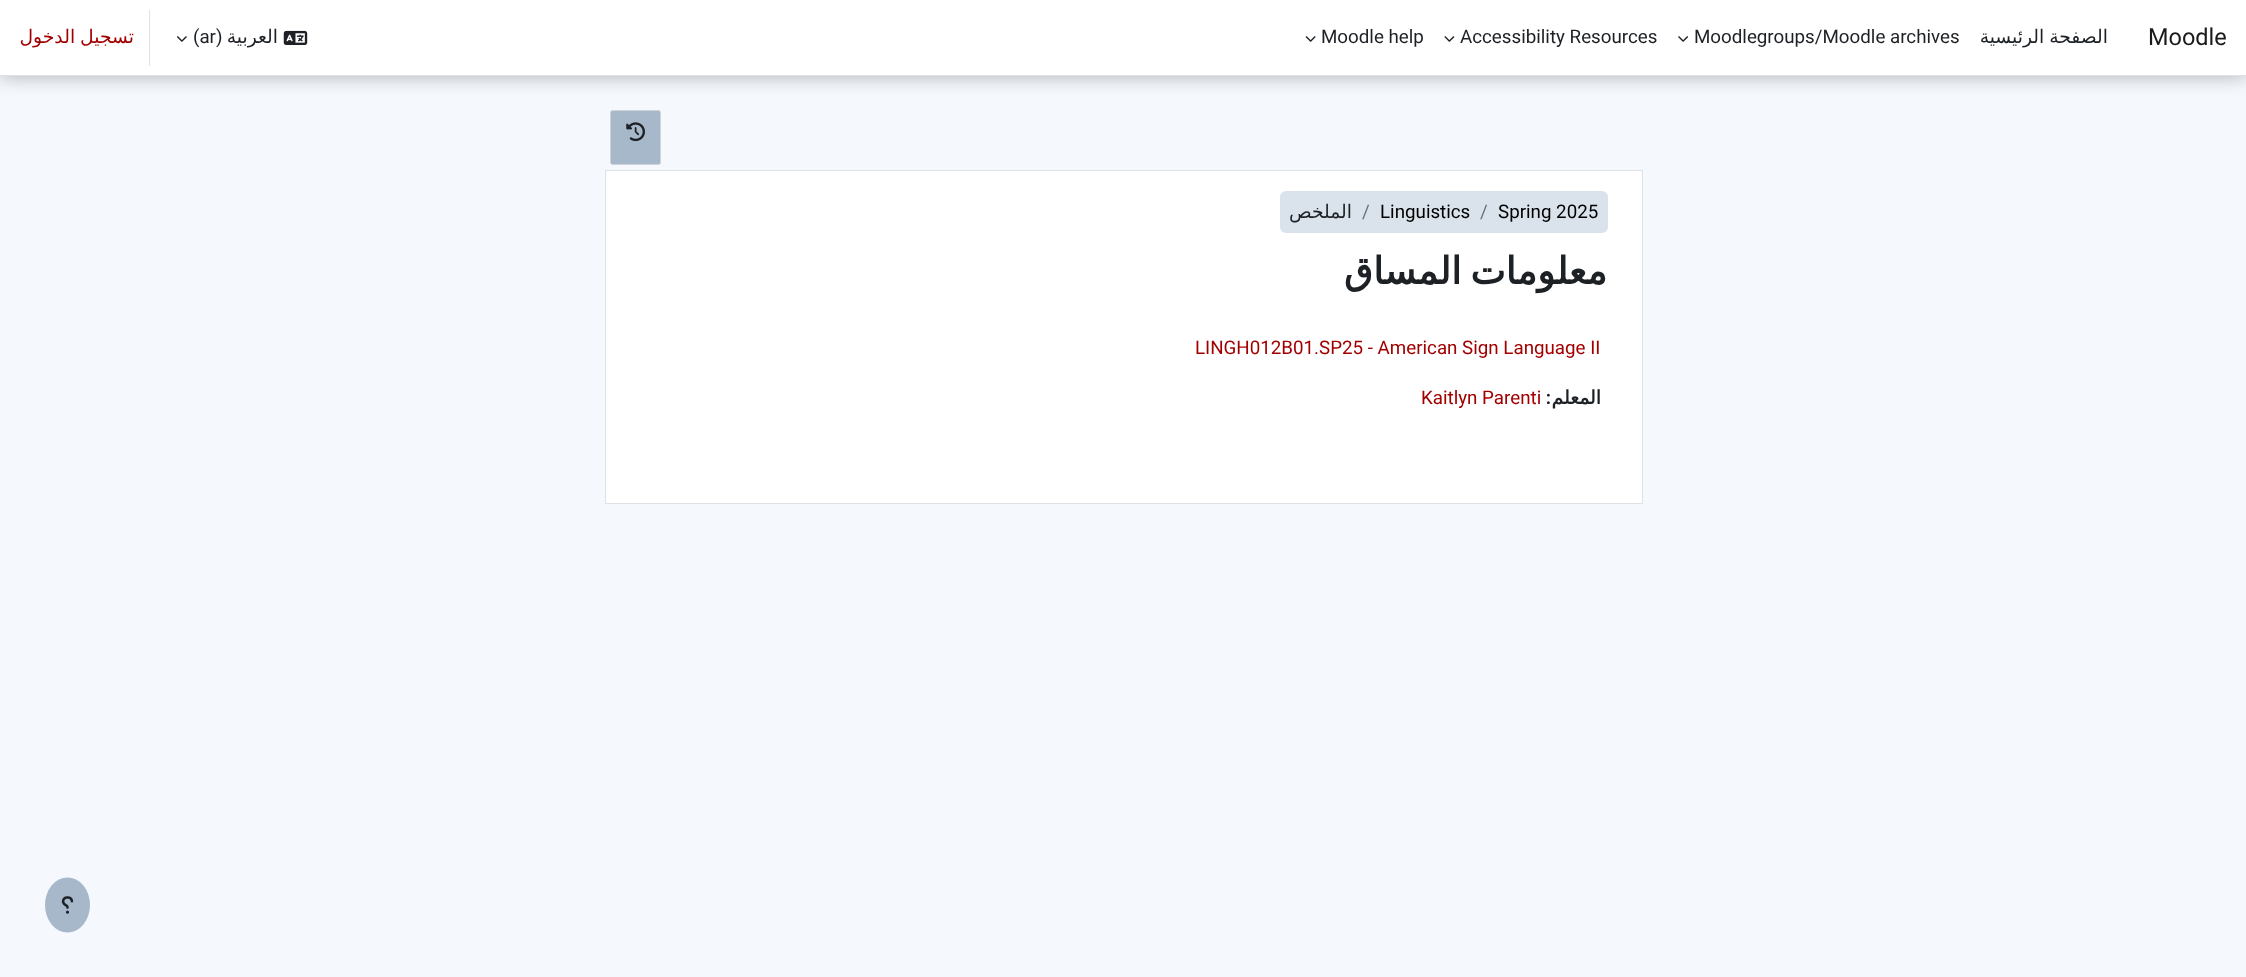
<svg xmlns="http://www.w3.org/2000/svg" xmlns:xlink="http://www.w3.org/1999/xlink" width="2246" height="977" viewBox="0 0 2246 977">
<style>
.cls-1{font:18.75px DejaVu Sans;direction:rtl;fill:#a20000}
.cls-2{font:18.75px Roboto;fill:#1d2125}
.cls-3{font:18.75px DejaVu Sans;direction:rtl;fill:#1d2125}
.cls-4{font:23.5px Roboto;fill:#1a1a1a}
.cls-5{font:18.75px Roboto;fill:#6a737b}
.cls-6{font:18.75px Roboto;fill:#000000}
.cls-7{font:bold 37.5px DejaVu Sans;direction:rtl;fill:#1d2125}
.cls-8{font:18.75px Roboto;fill:#a20000}
.cls-9{font:bold 18.75px Roboto;direction:rtl;fill:#1d2125}
.cls-10{font:bold 18.75px DejaVu Sans;direction:rtl;fill:#1d2125}
</style>
<rect width="100%" height="100%" fill="#f5f9fd"/>
<rect fill="#000000" fill-opacity="0.3" filter="blur(9.5px)" x="0" y="0" width="2246" height="76"/>
<rect fill="#ffffff" x="0" y="0" width="2246" height="75"/>
<rect fill="#dee2e6" x="0" y="75" width="2246" height="1"/>
<rect fill="#dee2e6" x="149" y="10" width="1" height="56"/>
<image xlink:href="image0.png" x="177" y="36" width="10" height="6"/>
<image xlink:href="image1.png" x="283" y="30" width="25" height="15"/>
<image xlink:href="image2.png" x="1305" y="36" width="11" height="6"/>
<image xlink:href="image3.png" x="1444" y="36" width="11" height="6"/>
<image xlink:href="image4.png" x="1678" y="36" width="10" height="6"/>
<rect fill="#a6b8c9" stroke="#ced4da" x="610.5" y="110.5" width="50" height="54" rx="2"/>
<image xlink:href="image5.png" x="626" y="122" width="19" height="20"/>
<rect fill="#ffffff" stroke="#dee2e6" x="605.5" y="170.5" width="1037" height="333"/>
<rect fill="#dae3eb" x="1280" y="191" width="328" height="42" rx="6"/>
<ellipse fill="#a6b8c9" cx="67.5" cy="905" rx="22.5" ry="27.5"/>
<image xlink:href="image6.png" x="61" y="896" width="13" height="18"/>
<text class="cls-1" x="134" y="43" word-spacing="-1">تسجيل الدخول</text>
<text class="cls-2" x="193" y="43">(ar)</text>
<text class="cls-3" x="278" y="43">العربية</text>
<text class="cls-2" x="1321" y="43">Moodle help</text>
<text class="cls-2" x="1460" y="43">Accessibility Resources</text>
<text class="cls-2" x="1694" y="43">Moodlegroups/Moodle archives</text>
<text class="cls-3" x="2108" y="43" word-spacing="-1">الصفحة الرئيسية</text>
<text class="cls-4" x="2148" y="45">Moodle</text>
<text class="cls-3" x="1352" y="218">الملخص</text>
<text class="cls-5" x="1362" y="218">/</text>
<text class="cls-6" x="1380" y="218">Linguistics</text>
<text class="cls-5" x="1480" y="218">/</text>
<text class="cls-6" x="1498" y="218">Spring 2025</text>
<text class="cls-7" x="1607" y="284" word-spacing="-3">معلومات المساق</text>
<text class="cls-8" x="1195" y="354">LINGH012B01.SP25 - American Sign Language II</text>
<text class="cls-8" x="1421" y="404">Kaitlyn Parenti</text>
<text class="cls-9" x="1551" y="404">:</text>
<text class="cls-10" x="1601" y="404">المعلم</text>
</svg>
